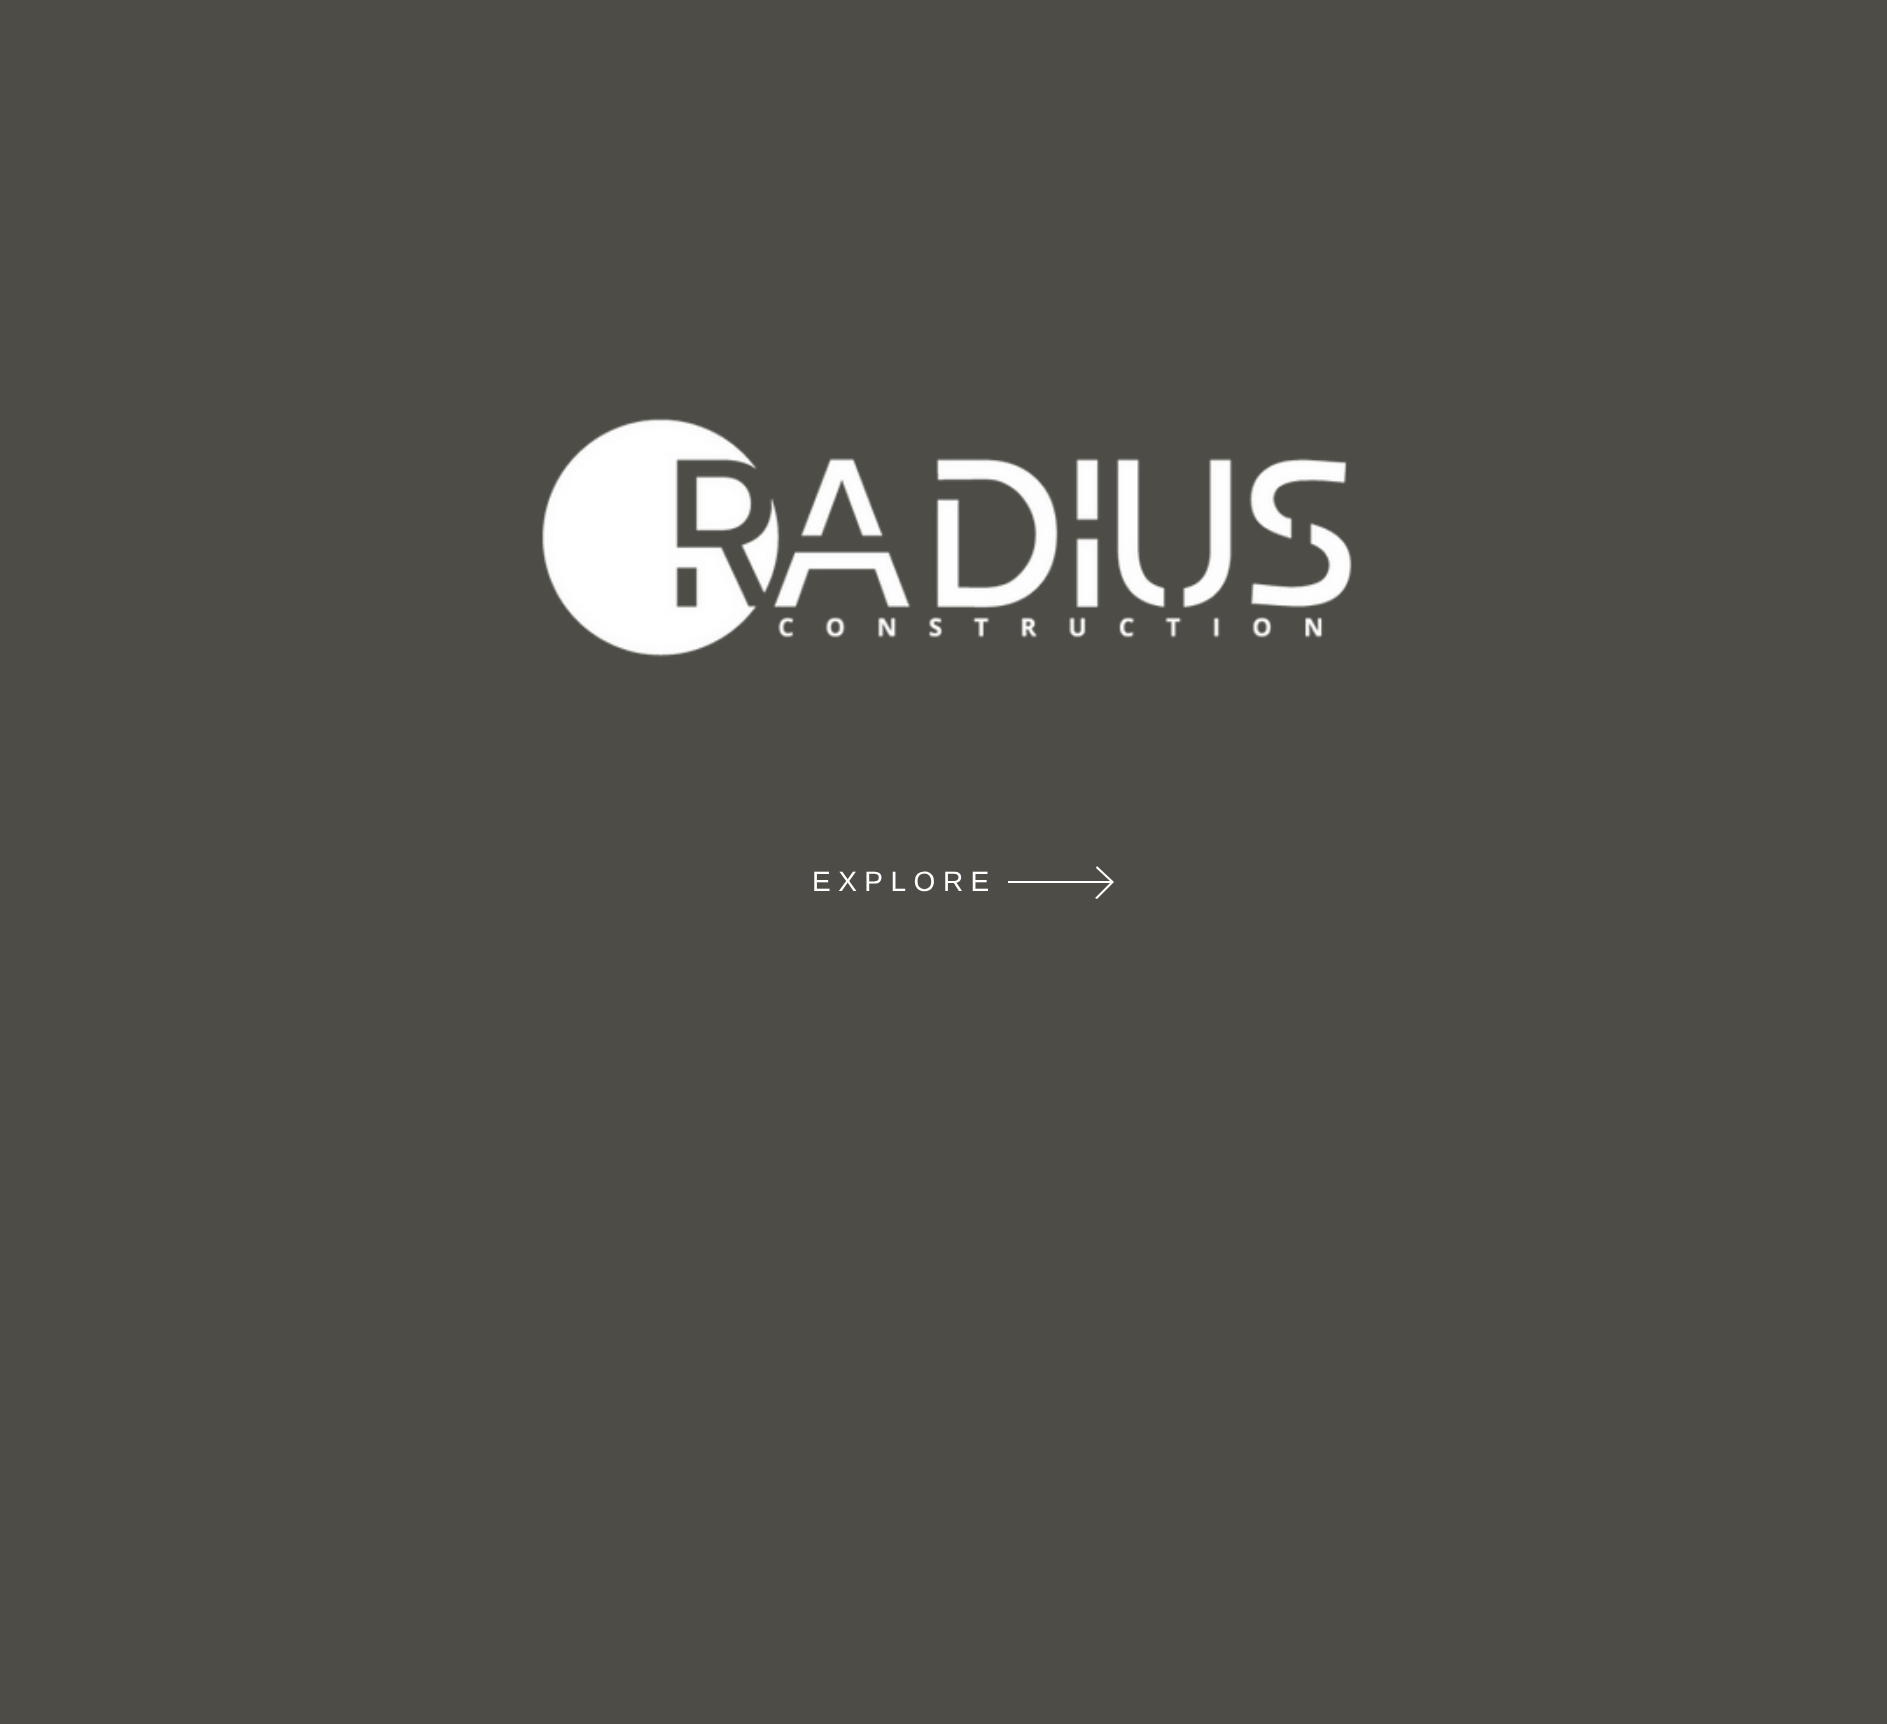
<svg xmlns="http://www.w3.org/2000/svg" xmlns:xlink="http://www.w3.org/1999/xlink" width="1887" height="1724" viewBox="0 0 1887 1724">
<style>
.cls-1{font:28px Liberation Sans;letter-spacing:7.5px;fill:#ffffff}
</style>
<rect width="100%" height="100%" fill="#4d4c46"/>
<image xlink:href="image0.png" x="542" y="418" width="810" height="239"/>
<path fill="#ffffff" d="M1097 866L1096 868L1110 881H1008V883H1110L1095 898L1097 899L1114 882Z"/>
<text class="cls-1" x="812" y="891">EXPLORE</text>
</svg>
